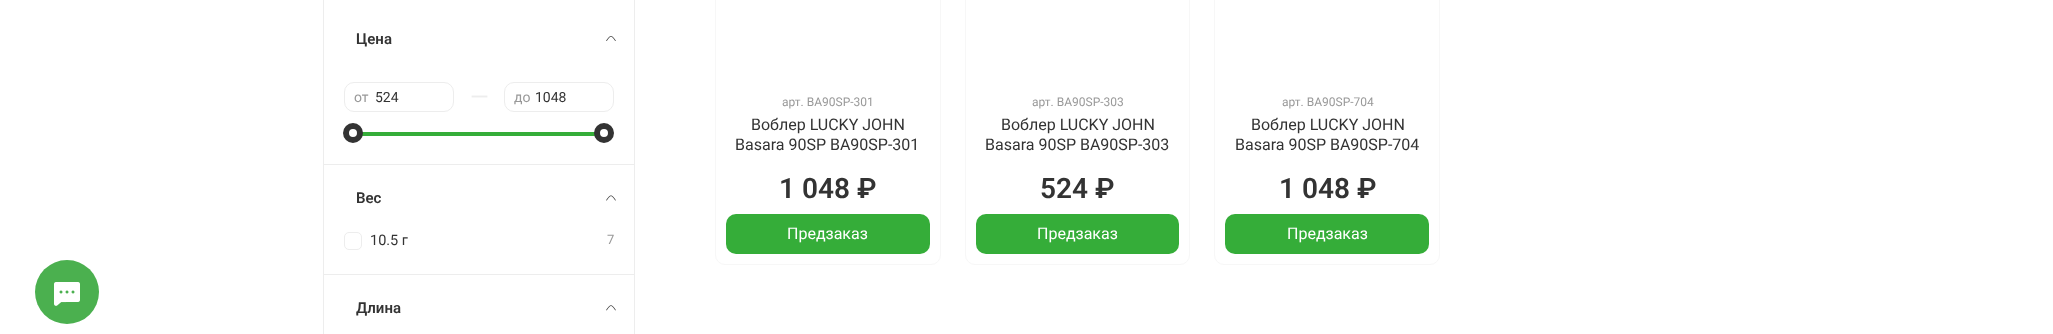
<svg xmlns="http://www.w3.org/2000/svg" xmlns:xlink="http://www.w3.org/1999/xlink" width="2053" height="334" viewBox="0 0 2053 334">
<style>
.cls-1{font:600 15px Roboto;fill:#333333}
.cls-2{font:14px Roboto;fill:#999999}
.cls-3{font:14px Roboto;fill:#333333}
.cls-4{font:24px Roboto;fill:#ededed}
.cls-5{font:14.5px Roboto;fill:#333333}
.cls-6{font:13px Roboto;fill:#999999}
.cls-7{font:12px Roboto;fill:#999999}
.cls-8{font:16px Roboto;fill:#333333}
.cls-9{font:600 28px Roboto;fill:#333333}
.cls-10{font:16px Roboto;fill:#ffffff}
</style>
<rect width="100%" height="100%" fill="#ffffff"/>
<circle fill="#4bb04f" cx="67" cy="292" r="32"/>
<image xlink:href="image0.png" x="54" y="282" width="26" height="24"/>
<rect fill="none" stroke="#ededed" x="323.5" y="-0.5" width="311" height="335"/>
<rect fill="#ededed" x="324" y="164" width="310" height="1"/>
<image xlink:href="image1.png" x="606" y="36" width="10" height="5"/>
<rect fill="none" stroke="#ededed" x="344.5" y="82.5" width="109" height="29" rx="9.5"/>
<rect fill="none" stroke="#ededed" x="504.5" y="82.5" width="109" height="29" rx="9.5"/>
<rect fill="#35ad39" x="354" y="132" width="241" height="4"/>
<circle fill="#ffffff" stroke="#333333" stroke-width="6" cx="353" cy="133" r="7"/>
<circle fill="#ffffff" stroke="#333333" stroke-width="6" cx="604" cy="133" r="7"/>
<rect fill="#ededed" x="324" y="274" width="310" height="1"/>
<image xlink:href="image2.png" x="606" y="195" width="10" height="6"/>
<rect fill="none" stroke="#ededed" x="344.5" y="232.5" width="17" height="17" rx="4.5"/>
<image xlink:href="image3.png" x="606" y="305" width="10" height="6"/>
<rect fill="none" stroke="#f7f7f7" x="715.5" y="-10.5" width="225" height="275" rx="9.5"/>
<rect fill="#35ad39" x="726" y="214" width="204" height="40" rx="10"/>
<rect fill="none" stroke="#f7f7f7" x="965.5" y="-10.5" width="224" height="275" rx="9.5"/>
<rect fill="#35ad39" x="976" y="214" width="203" height="40" rx="10"/>
<rect fill="none" stroke="#f7f7f7" x="1214.5" y="-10.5" width="225" height="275" rx="9.5"/>
<rect fill="#35ad39" x="1225" y="214" width="204" height="40" rx="10"/>
<text class="cls-1" x="356" y="44">Цена</text>
<text class="cls-2" x="354" y="102">от</text>
<text class="cls-3" x="375" y="102">524</text>
<text class="cls-4" x="470" y="105">—</text>
<text class="cls-2" x="514" y="102">до</text>
<text class="cls-3" x="535" y="102">1048</text>
<text class="cls-1" x="356" y="203">Вес</text>
<text class="cls-5" x="370" y="245">10.5 г</text>
<text class="cls-6" x="607" y="244">7</text>
<text class="cls-1" x="356" y="313">Длина</text>
<text class="cls-7" x="782" y="106">арт. BA90SP-301</text>
<text class="cls-8" x="751" y="130">Воблер LUCKY JOHN</text>
<text class="cls-8" x="735" y="150">Basara 90SP BA90SP-301</text>
<text class="cls-9" x="779" y="198">1 048 ₽</text>
<text class="cls-10" x="787" y="239">Предзаказ</text>
<text class="cls-7" x="1032" y="106">арт. BA90SP-303</text>
<text class="cls-8" x="1001" y="130">Воблер LUCKY JOHN</text>
<text class="cls-8" x="985" y="150">Basara 90SP BA90SP-303</text>
<text class="cls-9" x="1040" y="198">524 ₽</text>
<text class="cls-10" x="1037" y="239">Предзаказ</text>
<text class="cls-7" x="1282" y="106">арт. BA90SP-704</text>
<text class="cls-8" x="1251" y="130">Воблер LUCKY JOHN</text>
<text class="cls-8" x="1235" y="150">Basara 90SP BA90SP-704</text>
<text class="cls-9" x="1279" y="198">1 048 ₽</text>
<text class="cls-10" x="1287" y="239">Предзаказ</text>
</svg>
